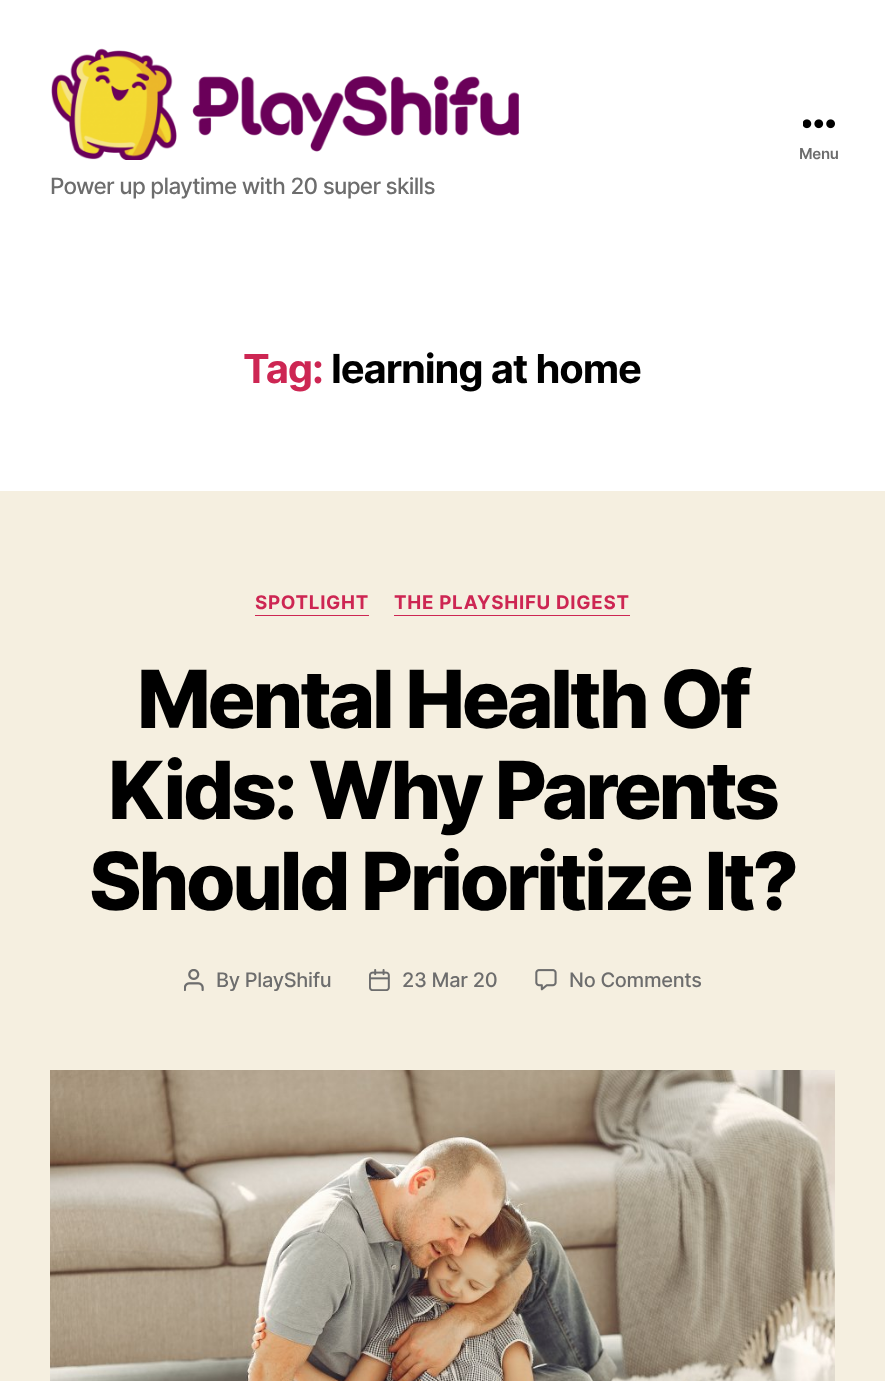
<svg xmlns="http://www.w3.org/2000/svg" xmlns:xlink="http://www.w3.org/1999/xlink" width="885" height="1381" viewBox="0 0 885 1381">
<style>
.cls-1{font:600 15px Inter;letter-spacing:-0.3px;fill:#6d6d6d}
.cls-2{font:500 22.5px Inter;letter-spacing:-0.7px;fill:#6d6d6d}
.cls-3{font:bold 40px Inter;letter-spacing:-1.1px;fill:#cd2653}
.cls-4{font:bold 40px Inter;letter-spacing:-1.1px;fill:#000000}
.cls-5{font:bold 18.75px Inter;letter-spacing:0.7px;fill:#cd2653}
.cls-6{font:800 80px Inter;letter-spacing:-3.3px;fill:#000000}
.cls-7{font:500 20px Inter;letter-spacing:-0.3px;fill:#6d6d6d}
</style>
<rect width="100%" height="100%" fill="#f5efe0"/>
<rect fill="#ffffff" x="0" y="0" width="885" height="491"/>
<image xlink:href="image0.png" x="803" y="119" width="32" height="10"/>
<image xlink:href="image1.png" x="51" y="48" width="468" height="112"/>
<rect fill="#cd2653" x="255" y="615" width="114" height="1"/>
<rect fill="#cd2653" x="394" y="615" width="236" height="1"/>
<image xlink:href="image2.png" x="184" y="969" width="20" height="22"/>
<image xlink:href="image3.png" x="369" y="969" width="21" height="22"/>
<image xlink:href="image4.png" x="535" y="969" width="22" height="22"/>
<image xlink:href="image5.png" x="50" y="1070" width="785" height="311"/>
<text class="cls-1" x="799" y="159">Menu</text>
<text class="cls-2" x="50" y="194">Power up playtime with 20 super skills</text>
<text class="cls-3" x="243" y="383">Tag:</text>
<text class="cls-4" x="331" y="383">learning at home</text>
<text class="cls-5" x="255" y="609">SPOTLIGHT</text>
<text class="cls-5" x="394" y="609">THE PLAYSHIFU DIGEST</text>
<text class="cls-6" x="137" y="728">Mental Health Of</text>
<text class="cls-6" x="108" y="819">Kids: Why Parents</text>
<text class="cls-6" x="89" y="910">Should Prioritize It?</text>
<text class="cls-7" x="216" y="987">By PlayShifu</text>
<text class="cls-7" x="402" y="987">23 Mar 20</text>
<text class="cls-7" x="569" y="987">No Comments</text>
</svg>
